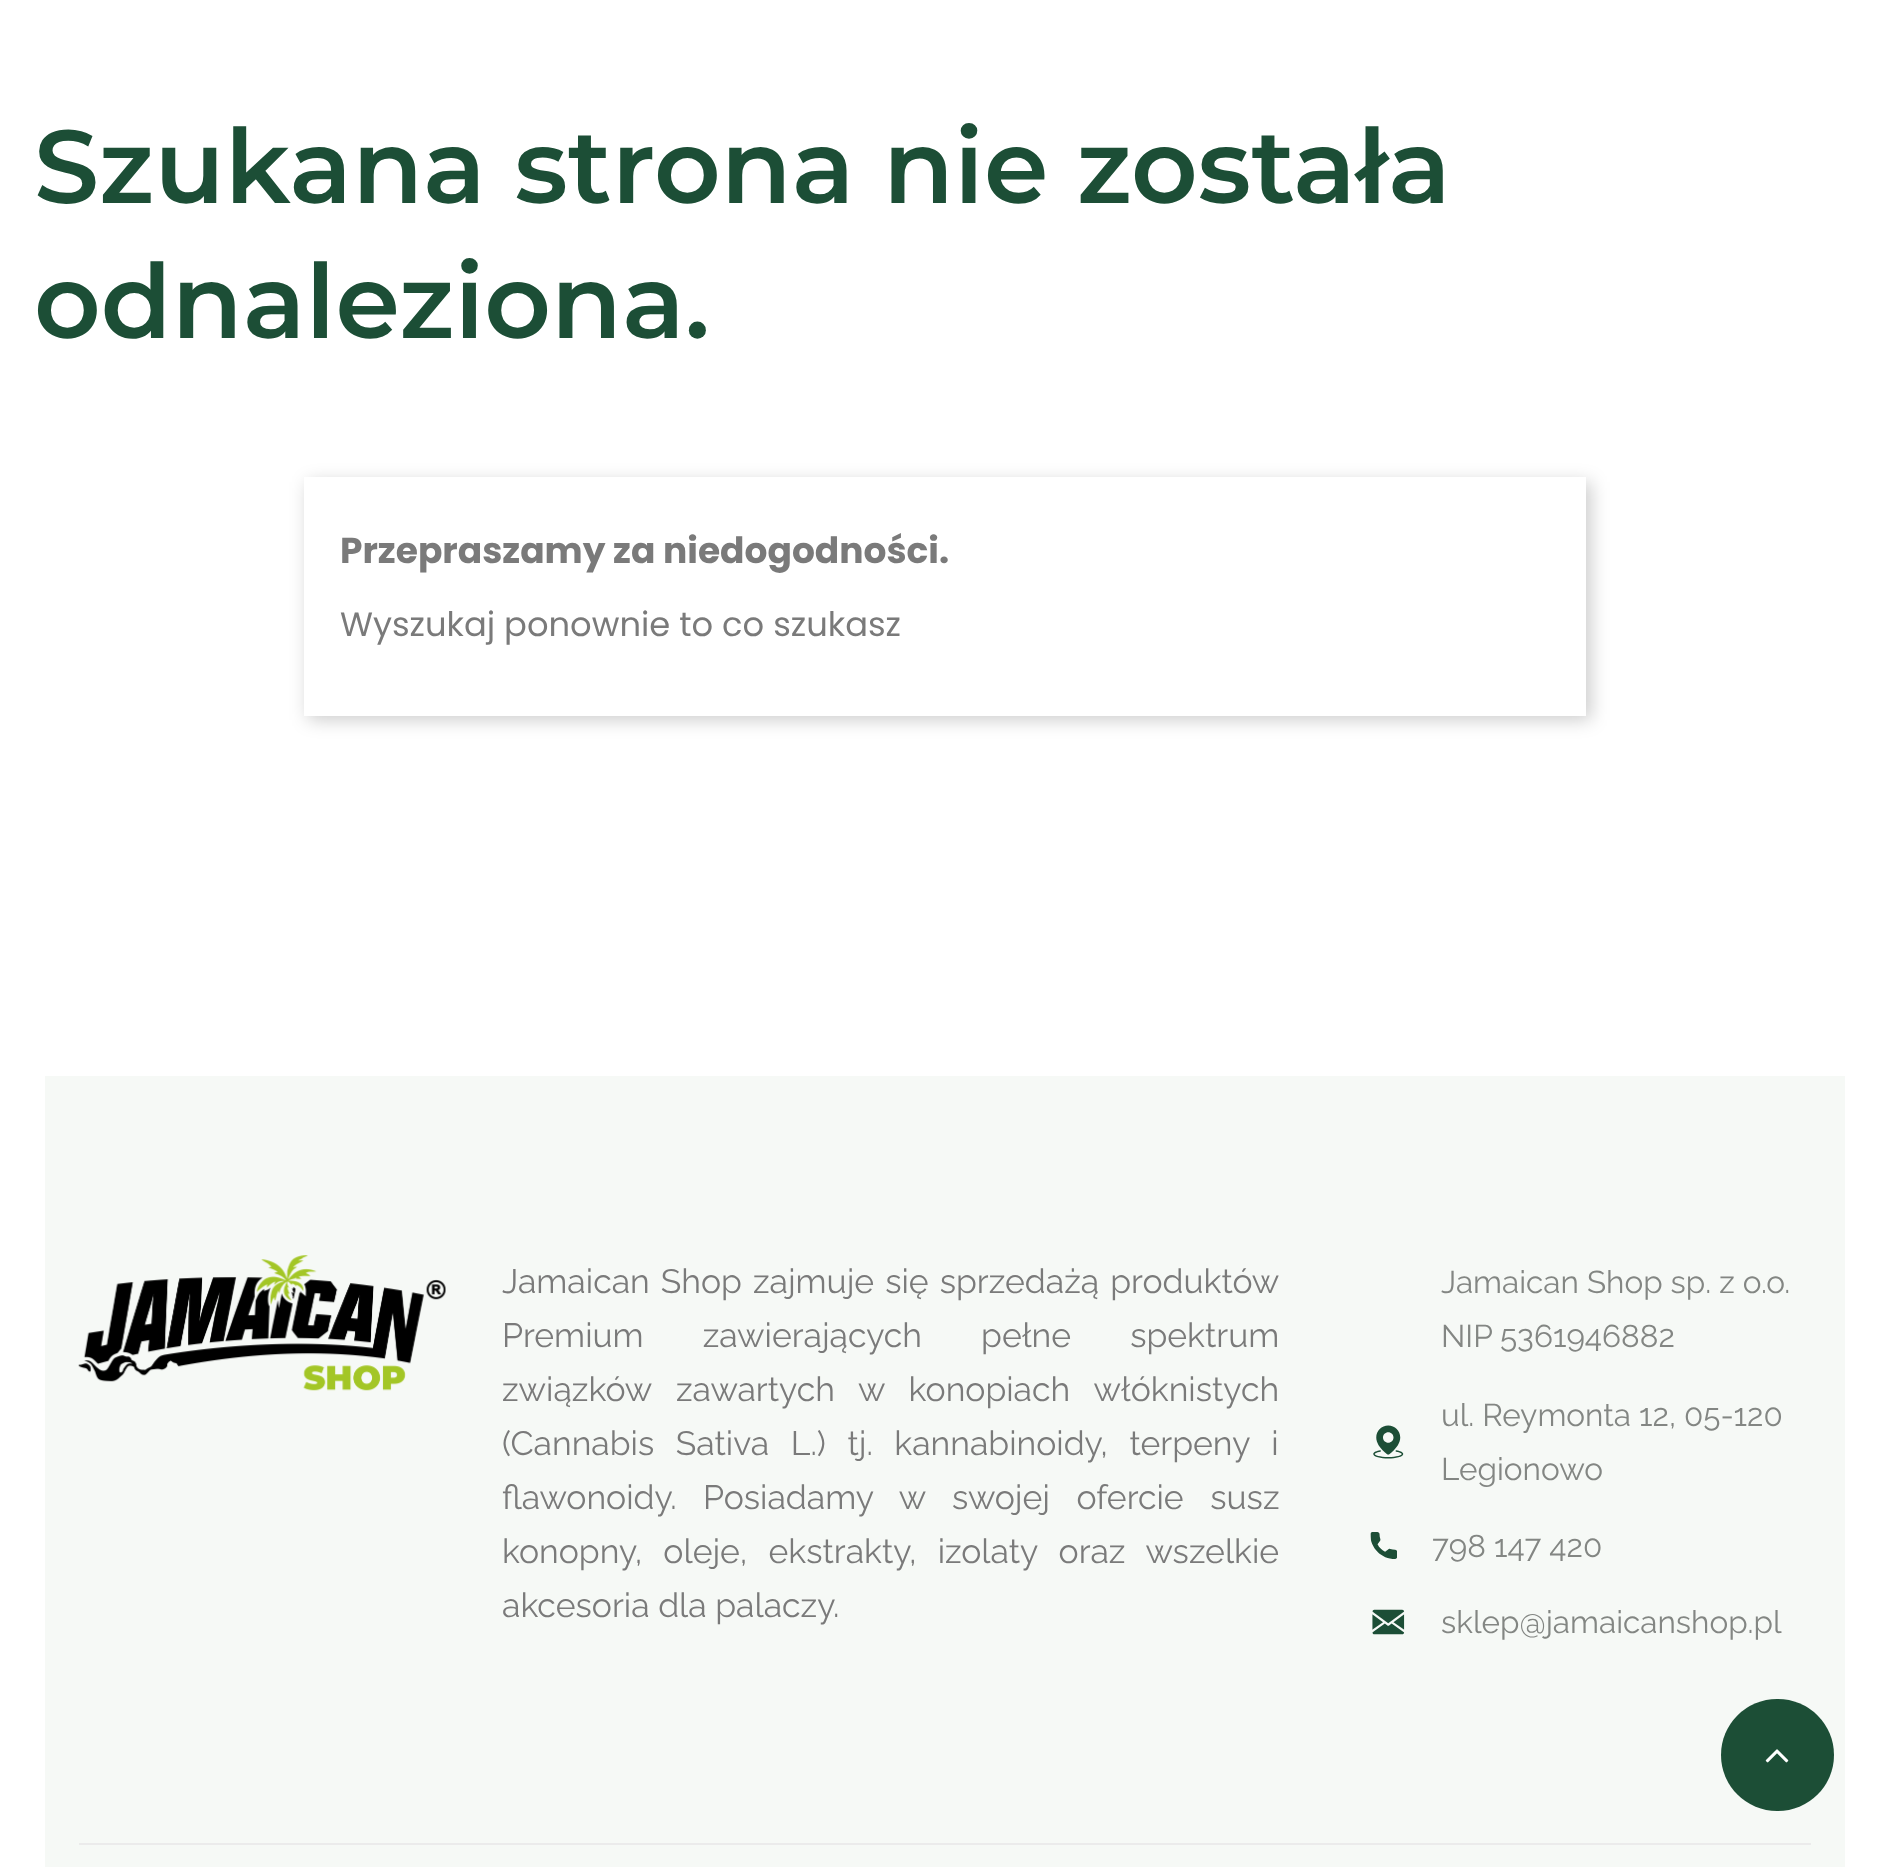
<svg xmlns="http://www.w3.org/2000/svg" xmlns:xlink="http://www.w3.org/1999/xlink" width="1888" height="1867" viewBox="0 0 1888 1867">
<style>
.cls-1{font:600 103.5px Montserrat;fill:#1c4e36}
.cls-2{font:bold 36px Poppins;fill:#7a7a7a}
.cls-3{font:33.75px Poppins;fill:#7a7a7a}
.cls-4{font:33.75px Raleway;fill:#7a7a7a}
.cls-5{font:31.5px Raleway;fill:#838683}
</style>
<rect width="100%" height="100%" fill="#ffffff"/>
<rect fill="#000000" fill-opacity="0.2" filter="blur(9px)" x="308" y="482" width="1283" height="238"/>
<rect fill="#ffffff" x="304" y="477" width="1282" height="239"/>
<rect fill="#f6f9f6" x="45" y="1076" width="1800" height="791"/>
<image xlink:href="image0.png" x="78" y="1255" width="368" height="136"/>
<image xlink:href="image1.png" x="1373" y="1425" width="31" height="34"/>
<image xlink:href="image2.png" x="1370" y="1532" width="27" height="27"/>
<image xlink:href="image3.png" x="1372" y="1609" width="33" height="26"/>
<rect fill="#ebebeb" x="79" y="1843" width="1732" height="2"/>
<rect fill="#1c4e36" x="1721" y="1699" width="113" height="112" rx="56"/>
<image xlink:href="image4.png" x="1765" y="1749" width="24" height="14"/>
<text class="cls-1"><tspan x="34" y="203">Szukana strona nie została</tspan><tspan x="34" y="338">odnaleziona.</tspan></text>
<text class="cls-2" x="340" y="563">Przepraszamy za niedogodności.</text>
<text class="cls-3" x="340" y="636">Wyszukaj ponownie to co szukasz</text>
<text class="cls-4"><tspan x="502" y="1293" word-spacing="2.5">Jamaican Shop zajmuje się sprzedażą produktów</tspan><tspan x="502" y="1347" word-spacing="50.5">Premium zawierających pełne spektrum</tspan><tspan x="502" y="1401">związków</tspan></text>
<text class="cls-4" x="676" y="1401" word-spacing="15.5">zawartych w konopiach włóknistych</text>
<text class="cls-4"><tspan x="502" y="1455" word-spacing="13">(Cannabis Sativa L.) tj. kannabinoidy, terpeny i</tspan><tspan x="502" y="1509">flawonoidy.</tspan></text>
<text class="cls-4" x="703" y="1509" word-spacing="18">Posiadamy w swojej ofercie susz</text>
<text class="cls-4"><tspan x="502" y="1563" word-spacing="12.5">konopny, oleje, ekstrakty, izolaty oraz wszelkie</tspan><tspan x="502" y="1617">akcesoria dla palaczy.</tspan></text>
<text class="cls-5"><tspan x="1441" y="1293">Jamaican Shop sp. z o.o.</tspan><tspan x="1441" y="1347">NIP 5361946882</tspan></text>
<text class="cls-5"><tspan x="1441" y="1426">ul. Reymonta 12, 05-120</tspan><tspan x="1441" y="1480">Legionowo</tspan></text>
<text class="cls-5" x="1432" y="1557">798 147 420</text>
<text class="cls-5" x="1441" y="1633">sklep@jamaicanshop.pl</text>
</svg>
